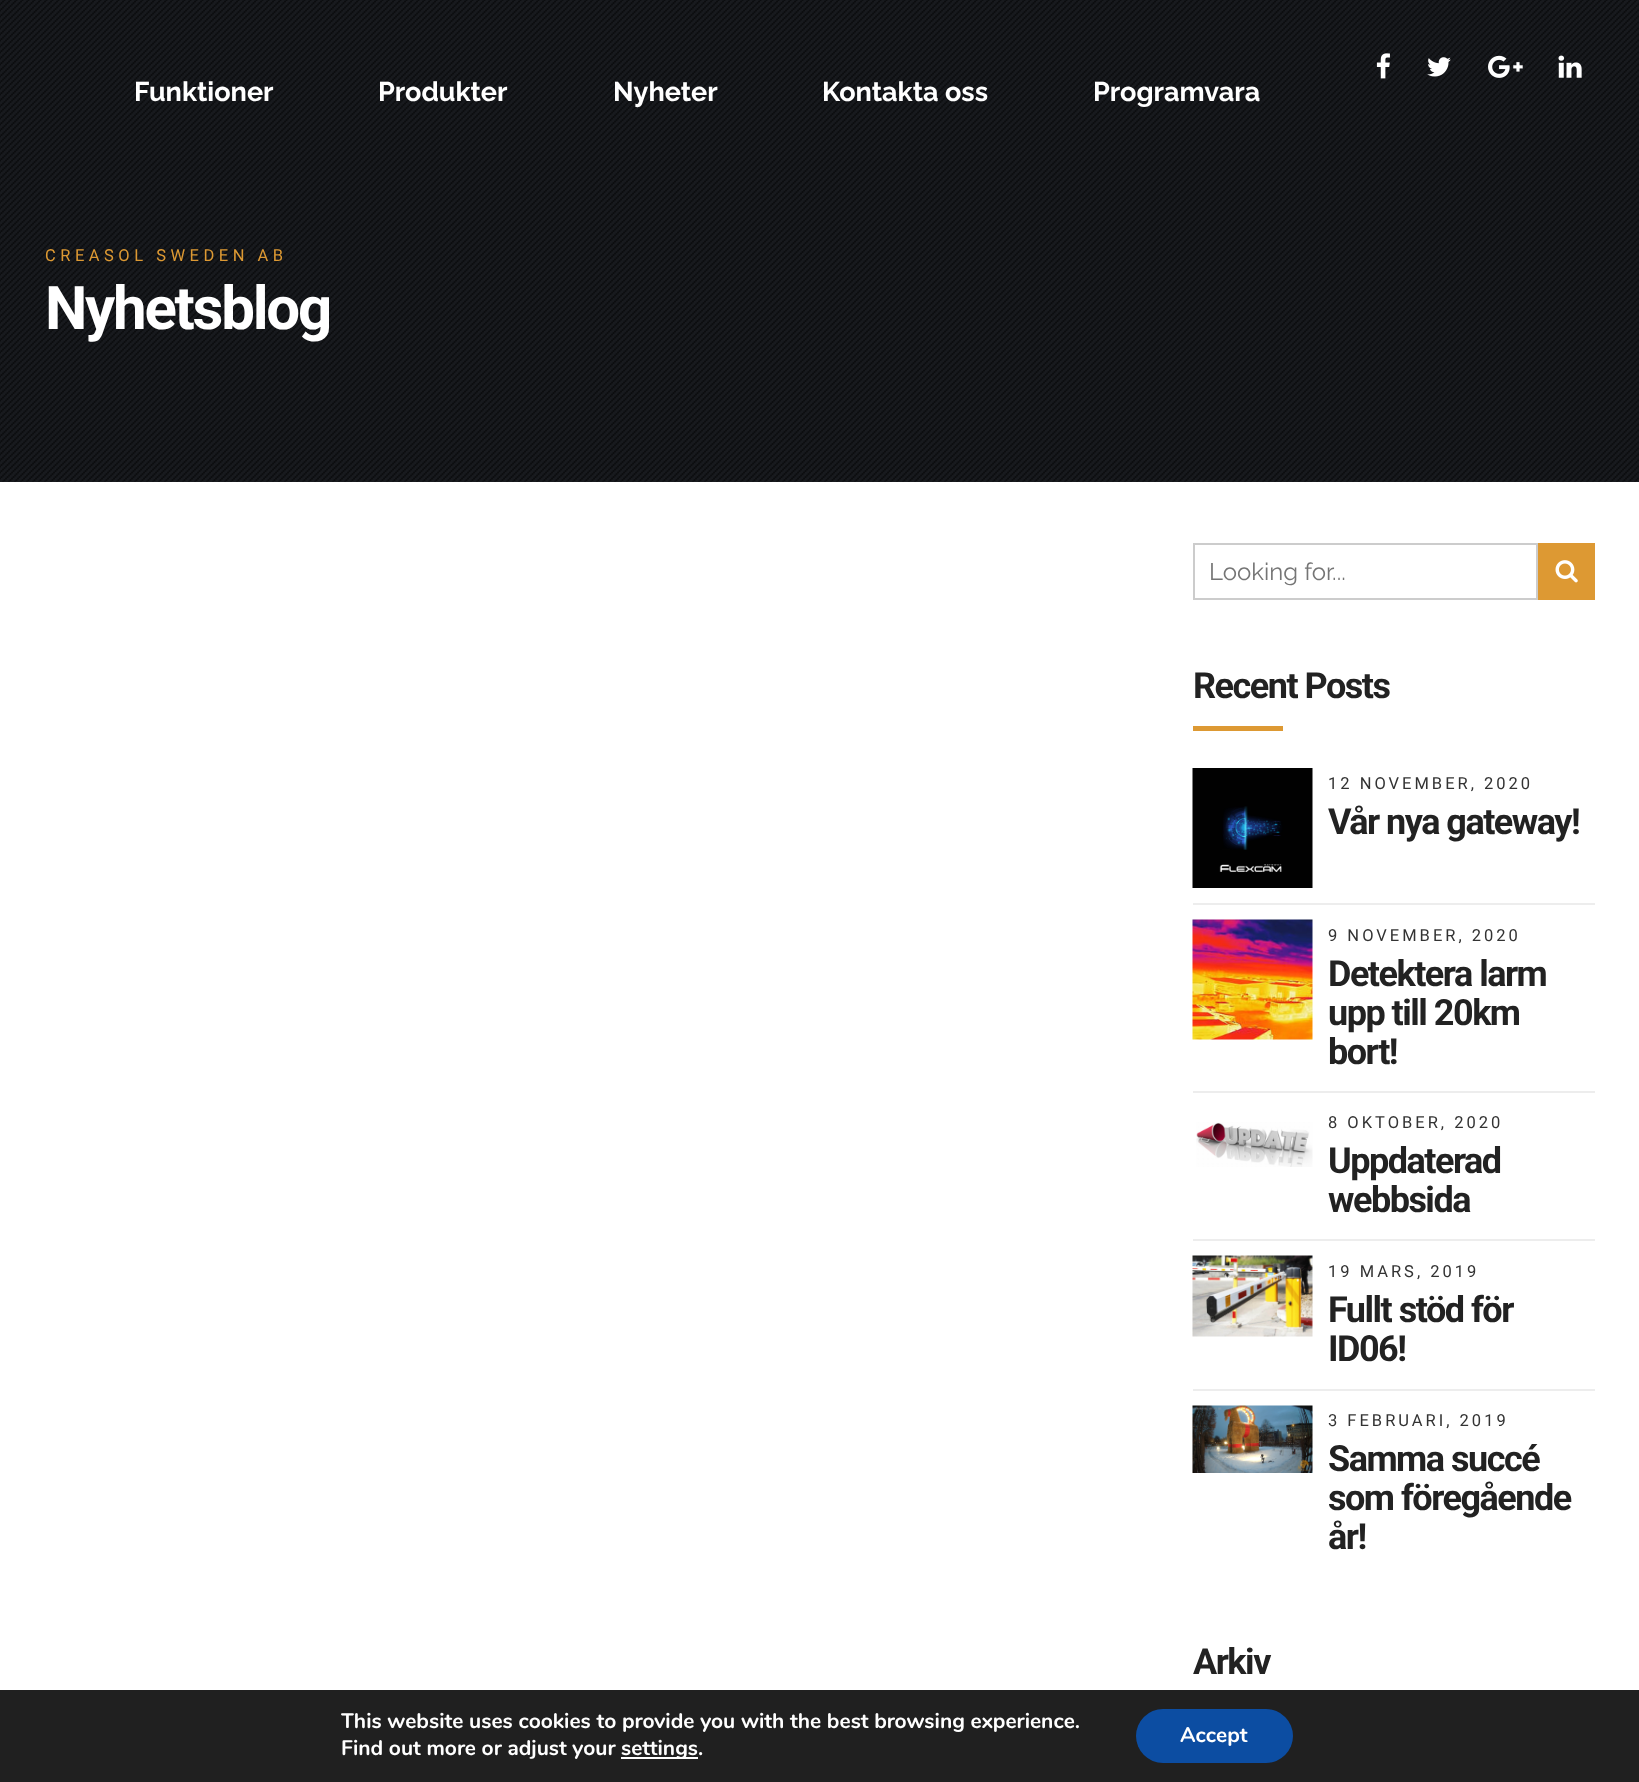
<svg xmlns="http://www.w3.org/2000/svg" xmlns:xlink="http://www.w3.org/1999/xlink" width="1639" height="1782" viewBox="0 0 1639 1782">
<style>
.cls-1{font:bold 27px Raleway;fill:#ffffff}
.cls-2{font:16.5px Roboto;letter-spacing:4.5px;fill:#dd9933}
.cls-3{font:bold 60px Roboto;letter-spacing:-2.25px;fill:#ffffff}
.cls-4{font:24px Raleway;fill:#757575}
.cls-5{font:bold 36px Roboto;letter-spacing:-1.5px;fill:#222222}
.cls-6{font:16.5px Roboto;letter-spacing:3px;fill:#333333}
.cls-7{font:bold 21px Nunito;fill:#ffffff}
</style>
<rect width="100%" height="100%" fill="#ffffff"/>
<rect fill="#181a1e" x="0" y="0" width="1639" height="482"/>
<image xlink:href="image4.png" x="0" y="0" width="1639" height="482"/>
<image xlink:href="image0.png" x="1376" y="53" width="14" height="26"/>
<image xlink:href="image1.png" x="1427" y="57" width="24" height="20"/>
<image xlink:href="image2.png" x="1488" y="55" width="35" height="23"/>
<image xlink:href="image3.png" x="1558" y="55" width="24" height="23"/>
<rect fill="none" stroke="#cccccc" stroke-width="2" x="1194" y="544" width="343" height="55"/>
<rect fill="#dd9933" x="1538" y="543" width="57" height="57"/>
<image xlink:href="image5.png" x="1555" y="560" width="23" height="23"/>
<rect fill="#dd9933" x="1193" y="726" width="90" height="5"/>
<image xlink:href="image6.png" x="1192" y="768" width="121" height="120"/>
<rect fill="#ededed" x="1193" y="903" width="402" height="2"/>
<image xlink:href="image7.png" x="1192" y="919" width="121" height="121"/>
<rect fill="#ededed" x="1193" y="1091" width="402" height="2"/>
<image xlink:href="image8.png" x="1196" y="1122" width="117" height="45"/>
<rect fill="#ededed" x="1193" y="1239" width="402" height="2"/>
<image xlink:href="image9.png" x="1192" y="1255" width="121" height="82"/>
<rect fill="#ededed" x="1193" y="1389" width="402" height="2"/>
<image xlink:href="image10.png" x="1192" y="1405" width="121" height="68"/>
<rect fill="#202020" x="0" y="1690" width="1639" height="92"/>
<rect fill="#ffffff" x="621" y="1757" width="77" height="2"/>
<rect fill="#0c4da2" x="1136" y="1709" width="157" height="54" rx="27"/>
<text class="cls-1" x="134" y="101">Funktioner</text>
<text class="cls-1" x="378" y="101">Produkter</text>
<text class="cls-1" x="613" y="101">Nyheter</text>
<text class="cls-1" x="822" y="101">Kontakta oss</text>
<text class="cls-1" x="1093" y="101">Programvara</text>
<text class="cls-2" x="45" y="261">CREASOL SWEDEN AB</text>
<text class="cls-3" x="45" y="329">Nyhetsblog</text>
<text class="cls-4" x="1209" y="580">Looking for...</text>
<text class="cls-5" x="1193" y="698">Recent Posts</text>
<text class="cls-6" x="1328" y="789">12 NOVEMBER, 2020</text>
<text class="cls-5" x="1328" y="834">Vår nya gateway!</text>
<text class="cls-6" x="1328" y="941">9 NOVEMBER, 2020</text>
<text class="cls-5"><tspan x="1328" y="986">Detektera larm</tspan><tspan x="1328" y="1025">upp till 20km</tspan><tspan x="1328" y="1064">bort!</tspan></text>
<text class="cls-6" x="1328" y="1128">8 OKTOBER, 2020</text>
<text class="cls-5"><tspan x="1328" y="1173">Uppdaterad</tspan><tspan x="1328" y="1212">webbsida</tspan></text>
<text class="cls-6" x="1328" y="1277">19 MARS, 2019</text>
<text class="cls-5"><tspan x="1328" y="1322">Fullt stöd för</tspan><tspan x="1328" y="1361">ID06!</tspan></text>
<text class="cls-6" x="1328" y="1426">3 FEBRUARI, 2019</text>
<text class="cls-5"><tspan x="1328" y="1471">Samma succé</tspan><tspan x="1328" y="1510">som föregående</tspan><tspan x="1328" y="1549">år!</tspan></text>
<text class="cls-5" x="1193" y="1674">Arkiv</text>
<text class="cls-7"><tspan x="341" y="1728">This website uses cookies to provide you with the best browsing experience.</tspan><tspan x="341" y="1755">Find out more or adjust your</tspan></text>
<text class="cls-7" x="621" y="1755">settings.</text>
<text class="cls-7" x="1180" y="1742">Accept</text>
</svg>
